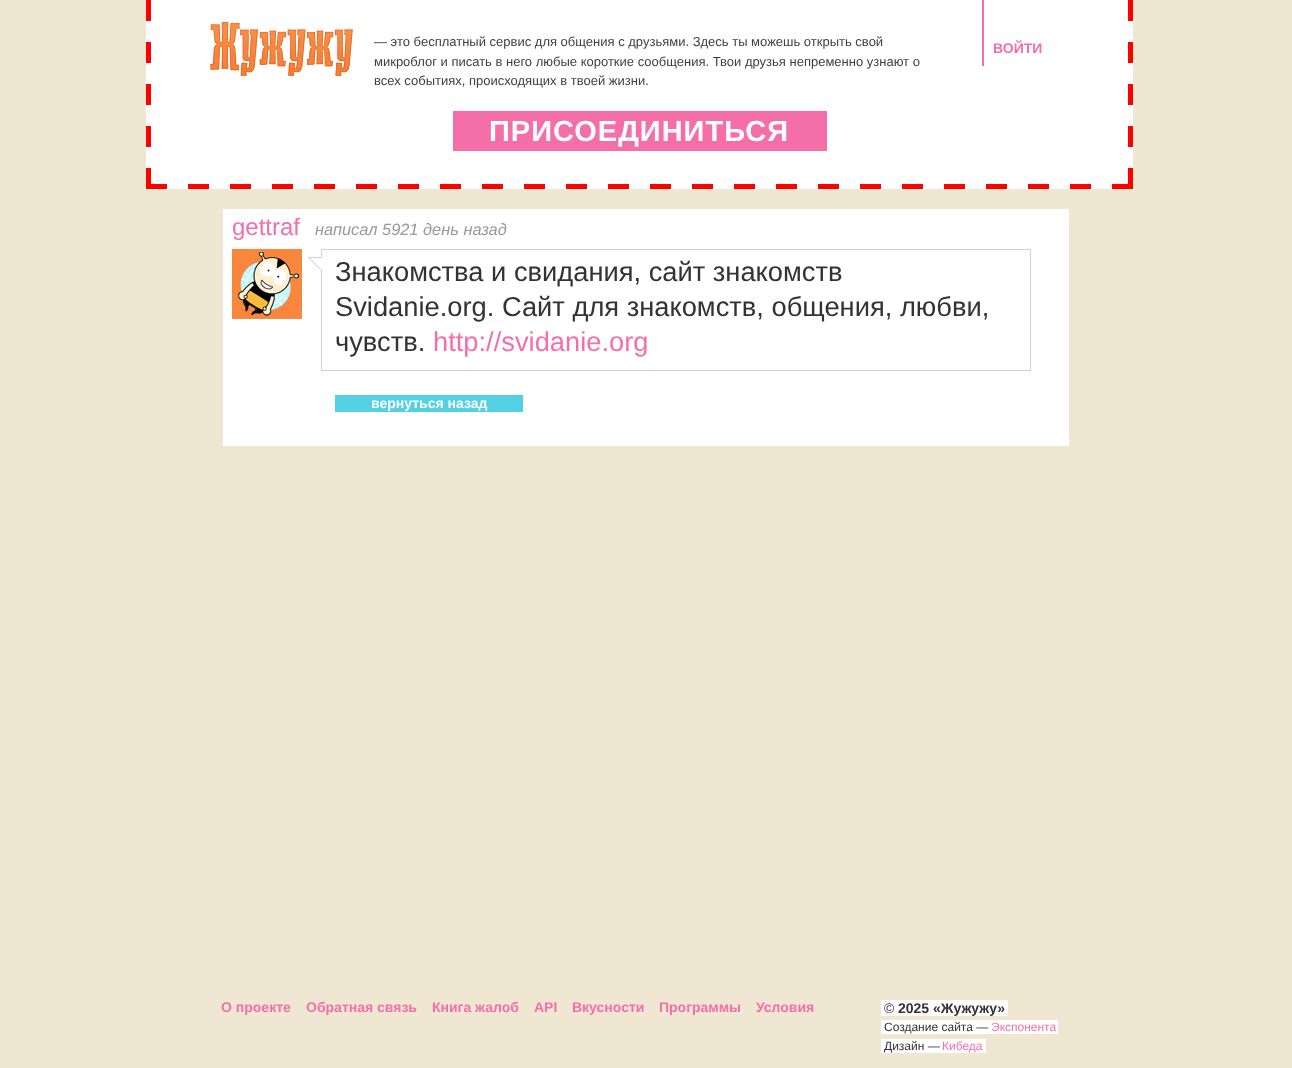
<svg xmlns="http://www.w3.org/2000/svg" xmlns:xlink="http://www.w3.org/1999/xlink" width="1292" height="1068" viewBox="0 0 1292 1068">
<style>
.cls-1{font:13px Liberation Sans;fill:#3e3e3e}
.cls-2{font:bold 14px Liberation Sans;fill:#f46faa}
.cls-3{font:bold 29px Liberation Sans;letter-spacing:1px;fill:#ffffff}
.cls-4{font:24px Liberation Sans;fill:#f46faa}
.cls-5{font:italic 16.4px Liberation Sans;fill:#999999}
.cls-6{font:27.3px Liberation Sans;fill:#333333}
.cls-7{font:27.3px Liberation Sans;fill:#f46faa}
.cls-8{font:bold 14px Liberation Sans;fill:#ffffff}
.cls-9{font:14px Liberation Sans;fill:#333333}
.cls-10{font:bold 14px Liberation Sans;fill:#333333}
.cls-11{font:12px Liberation Sans;fill:#333333}
.cls-12{font:12px Liberation Sans;fill:#f46faa}
</style>
<rect width="100%" height="100%" fill="#f0e7d2"/>
<image xlink:href="image0.png" x="146" y="0" width="987" height="189"/>
<image xlink:href="image1.png" x="210" y="22" width="143" height="54"/>
<rect fill="#f46faa" x="982" y="0" width="2" height="66"/>
<rect fill="#f46faa" x="453" y="111" width="374" height="40"/>
<rect fill="#ffffff" x="223" y="209" width="846" height="237"/>
<image xlink:href="image2.png" x="232" y="249" width="70" height="70"/>
<rect fill="none" stroke="#d0d0d0" x="321.5" y="249.5" width="709" height="121"/>
<image xlink:href="image3.png" x="308" y="257" width="14" height="13"/>
<rect fill="#53d0e1" x="335" y="395" width="188" height="17"/>
<rect fill="#ffffff" x="881" y="1000" width="127" height="16"/>
<rect fill="#ffffff" x="881" y="1020" width="177" height="14"/>
<rect fill="#ffffff" x="881" y="1039" width="105" height="14"/>
<text class="cls-1"><tspan x="374" y="46">— это бесплатный сервис для общения с друзьями. Здесь ты можешь открыть свой</tspan><tspan x="374" y="66">микроблог и писать в него любые короткие сообщения. Твои друзья непременно узнают о</tspan><tspan x="374" y="85">всех событиях, происходящих в твоей жизни.</tspan></text>
<text class="cls-2" x="993" y="53">ВОЙТИ</text>
<text class="cls-3" x="489" y="141">ПРИСОЕДИНИТЬСЯ</text>
<text class="cls-4" x="232" y="235">gettraf</text>
<text class="cls-5" x="315" y="235">написал 5921 день назад</text>
<text class="cls-6"><tspan x="335" y="281">Знакомства и свидания, сайт знакомств</tspan><tspan x="335" y="316">Svidanie.org. Сайт для знакомств, общения, любви,</tspan><tspan x="335" y="351">чувств.</tspan></text>
<text class="cls-7" x="433" y="351">http://svidanie.org</text>
<text class="cls-8" x="371" y="408">вернуться назад</text>
<text class="cls-2" x="221" y="1012">О проекте</text>
<text class="cls-2" x="306" y="1012">Обратная связь</text>
<text class="cls-2" x="432" y="1012">Книга жалоб</text>
<text class="cls-2" x="534" y="1012">API</text>
<text class="cls-2" x="572" y="1012">Вкусности</text>
<text class="cls-2" x="659" y="1012">Программы</text>
<text class="cls-2" x="756" y="1012">Условия</text>
<text class="cls-9" x="884" y="1013">©</text>
<text class="cls-10" x="898" y="1013">2025 «Жужужу»</text>
<text class="cls-11" x="884" y="1031">Cоздание сайта —</text>
<text class="cls-12" x="991" y="1031">Экспонента</text>
<text class="cls-11" x="884" y="1050">Дизайн —</text>
<text class="cls-12" x="942" y="1050">Кибеда</text>
</svg>
